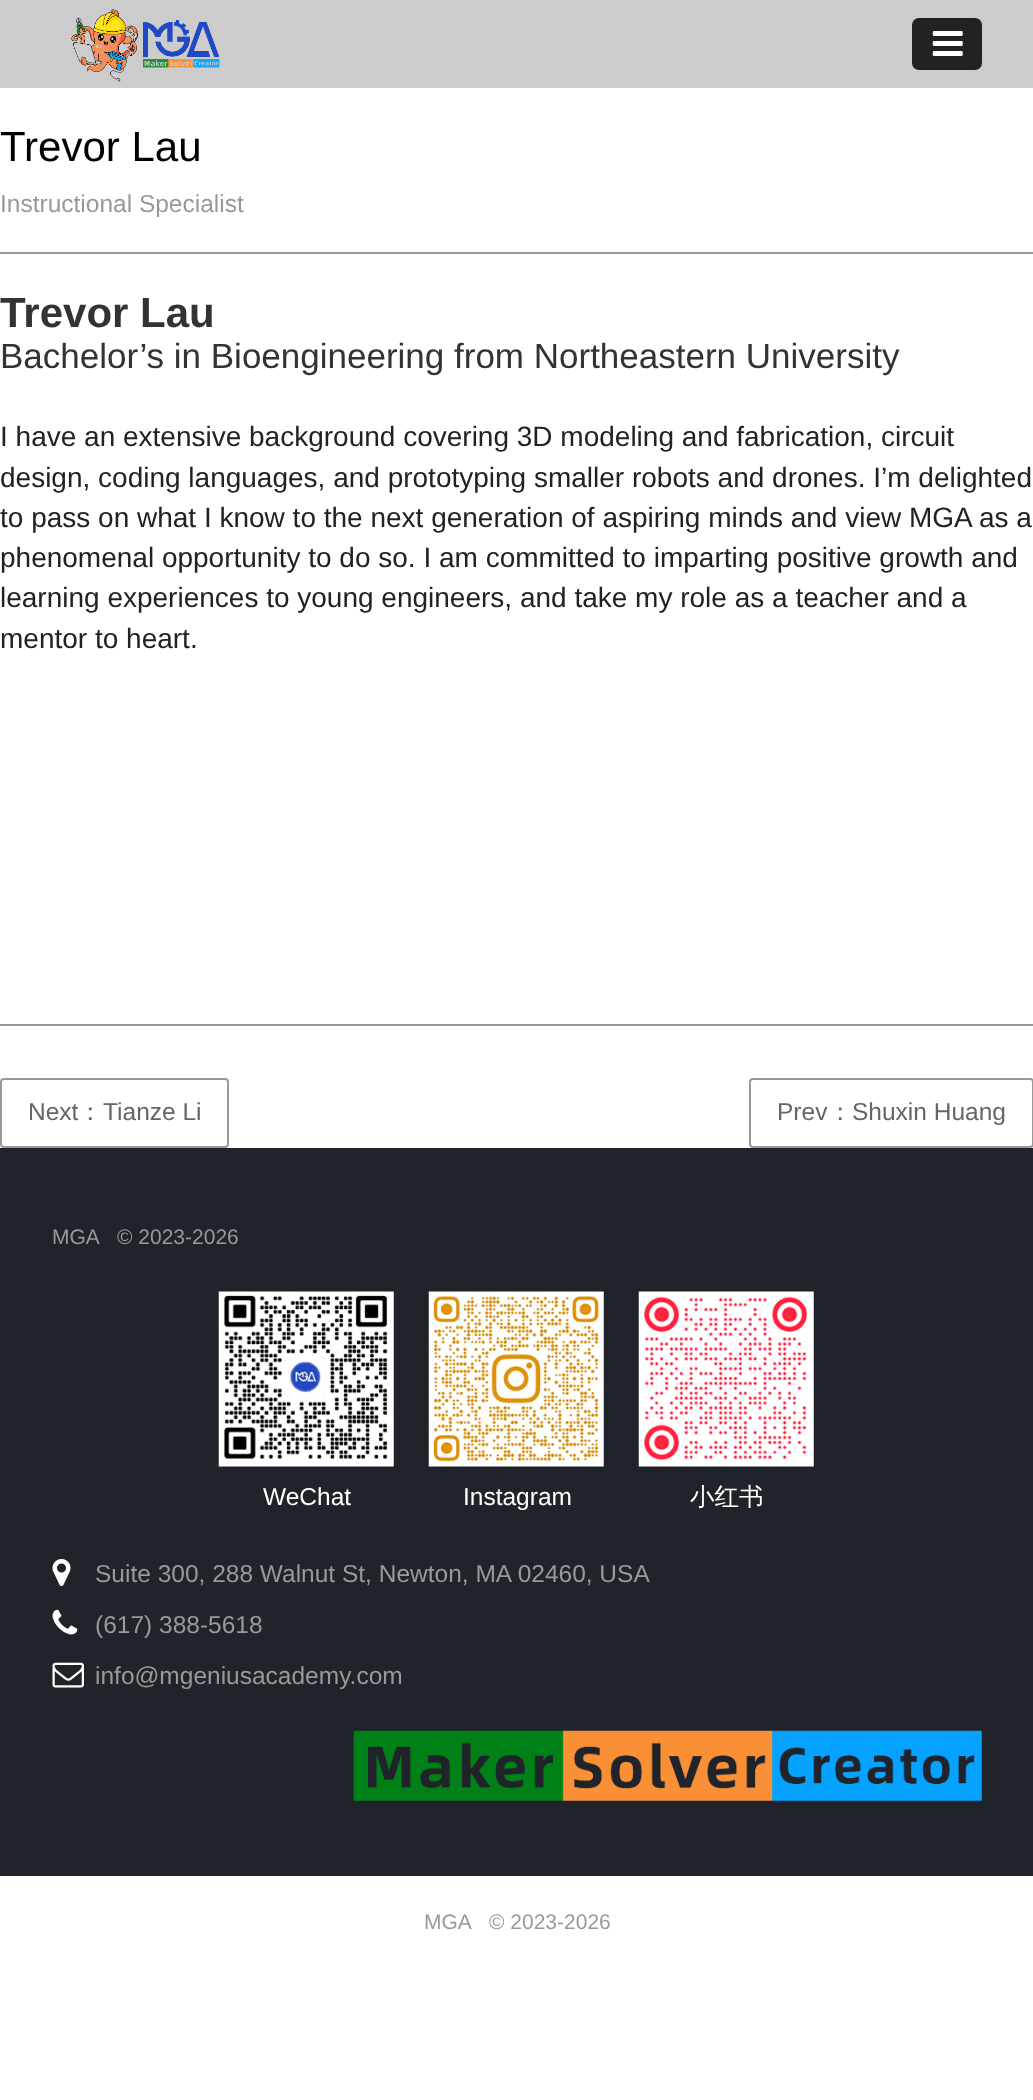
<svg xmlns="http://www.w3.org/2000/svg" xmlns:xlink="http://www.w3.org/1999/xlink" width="1033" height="2100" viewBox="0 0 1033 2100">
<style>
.cls-1{font:42px Liberation Sans;fill:#000000}
.cls-2{font:24.5px Liberation Sans;fill:#999999}
.cls-3{font:bold 42px Liberation Sans;fill:#333333}
.cls-4{font:35px Liberation Sans;fill:#333333}
.cls-5{font:28px Liberation Sans;fill:#222222}
.cls-6{font:24.5px Liberation Sans;fill:#666666}
.cls-7{font:500 24.5px WenQuanYi Zen Hei;fill:#666666}
.cls-8{font:21px Liberation Sans;fill:#999999}
.cls-9{font:24.5px Liberation Sans;fill:#ffffff}
.cls-10{font:500 24.5px WenQuanYi Zen Hei;fill:#ffffff}
</style>
<rect width="100%" height="100%" fill="#ffffff"/>
<rect fill="#cccccc" x="0" y="0" width="1033" height="88"/>
<image xlink:href="image0.png" x="71" y="9" width="149" height="73"/>
<rect fill="#222222" x="912" y="18" width="70" height="52" rx="7"/>
<image xlink:href="image1.png" x="932" y="31" width="31" height="25"/>
<rect fill="#999999" x="0" y="252" width="1033" height="2"/>
<rect fill="#999999" x="0" y="1024" width="1033" height="2"/>
<rect fill="none" stroke="#999999" stroke-width="2" x="1" y="1079" width="227" height="68" rx="3"/>
<rect fill="none" stroke="#999999" stroke-width="2" x="750" y="1079" width="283" height="68" rx="3"/>
<rect fill="#20232a" x="0" y="1148" width="1033" height="728"/>
<image xlink:href="image2.png" x="218" y="1291" width="176" height="176"/>
<image xlink:href="image3.png" x="428" y="1291" width="176" height="176"/>
<image xlink:href="image4.png" x="638" y="1291" width="176" height="176"/>
<image xlink:href="image5.png" x="52" y="1559" width="19" height="27"/>
<image xlink:href="image6.png" x="52" y="1609" width="26" height="26"/>
<image xlink:href="image7.png" x="52" y="1662" width="32" height="26"/>
<image xlink:href="image8.png" x="353" y="1730" width="629" height="71"/>
<text class="cls-1" x="0" y="161">Trevor Lau</text>
<text class="cls-2" x="0" y="212">Instructional Specialist</text>
<text class="cls-3" x="0" y="327">Trevor Lau</text>
<text class="cls-4" x="0" y="368">Bachelor’s in Bioengineering from Northeastern University</text>
<text class="cls-5"><tspan x="0" y="446">I have an extensive background covering 3D modeling and fabrication, circuit</tspan><tspan x="0" y="487">design, coding languages, and prototyping smaller robots and drones. I’m delighted</tspan><tspan x="0" y="527">to pass on what I know to the next generation of aspiring minds and view MGA as a</tspan><tspan x="0" y="567">phenomenal opportunity to do so. I am committed to imparting positive growth and</tspan><tspan x="0" y="607">learning experiences to young engineers, and take my role as a teacher and a</tspan><tspan x="0" y="648">mentor to heart.</tspan></text>
<text class="cls-6" x="28" y="1120">Next</text>
<text class="cls-7" x="78" y="1120">：</text>
<text class="cls-6" x="103" y="1120">Tianze Li</text>
<text class="cls-6" x="777" y="1120">Prev</text>
<text class="cls-7" x="828" y="1120">：</text>
<text class="cls-6" x="852" y="1120">Shuxin Huang</text>
<text class="cls-8" x="52" y="1244">MGA</text>
<text class="cls-8" x="117" y="1244">© 2023-2026</text>
<text class="cls-9" x="263" y="1505">WeChat</text>
<text class="cls-9" x="463" y="1505">Instagram</text>
<text class="cls-10" x="690" y="1505">小红书</text>
<text class="cls-2" x="95" y="1582">Suite 300, 288 Walnut St, Newton, MA 02460, USA</text>
<text class="cls-2" x="95" y="1633">(617) 388-5618</text>
<text class="cls-2" x="95" y="1684">info@mgeniusacademy.com</text>
<text class="cls-8" x="424" y="1929">MGA</text>
<text class="cls-8" x="489" y="1929">© 2023-2026</text>
</svg>
